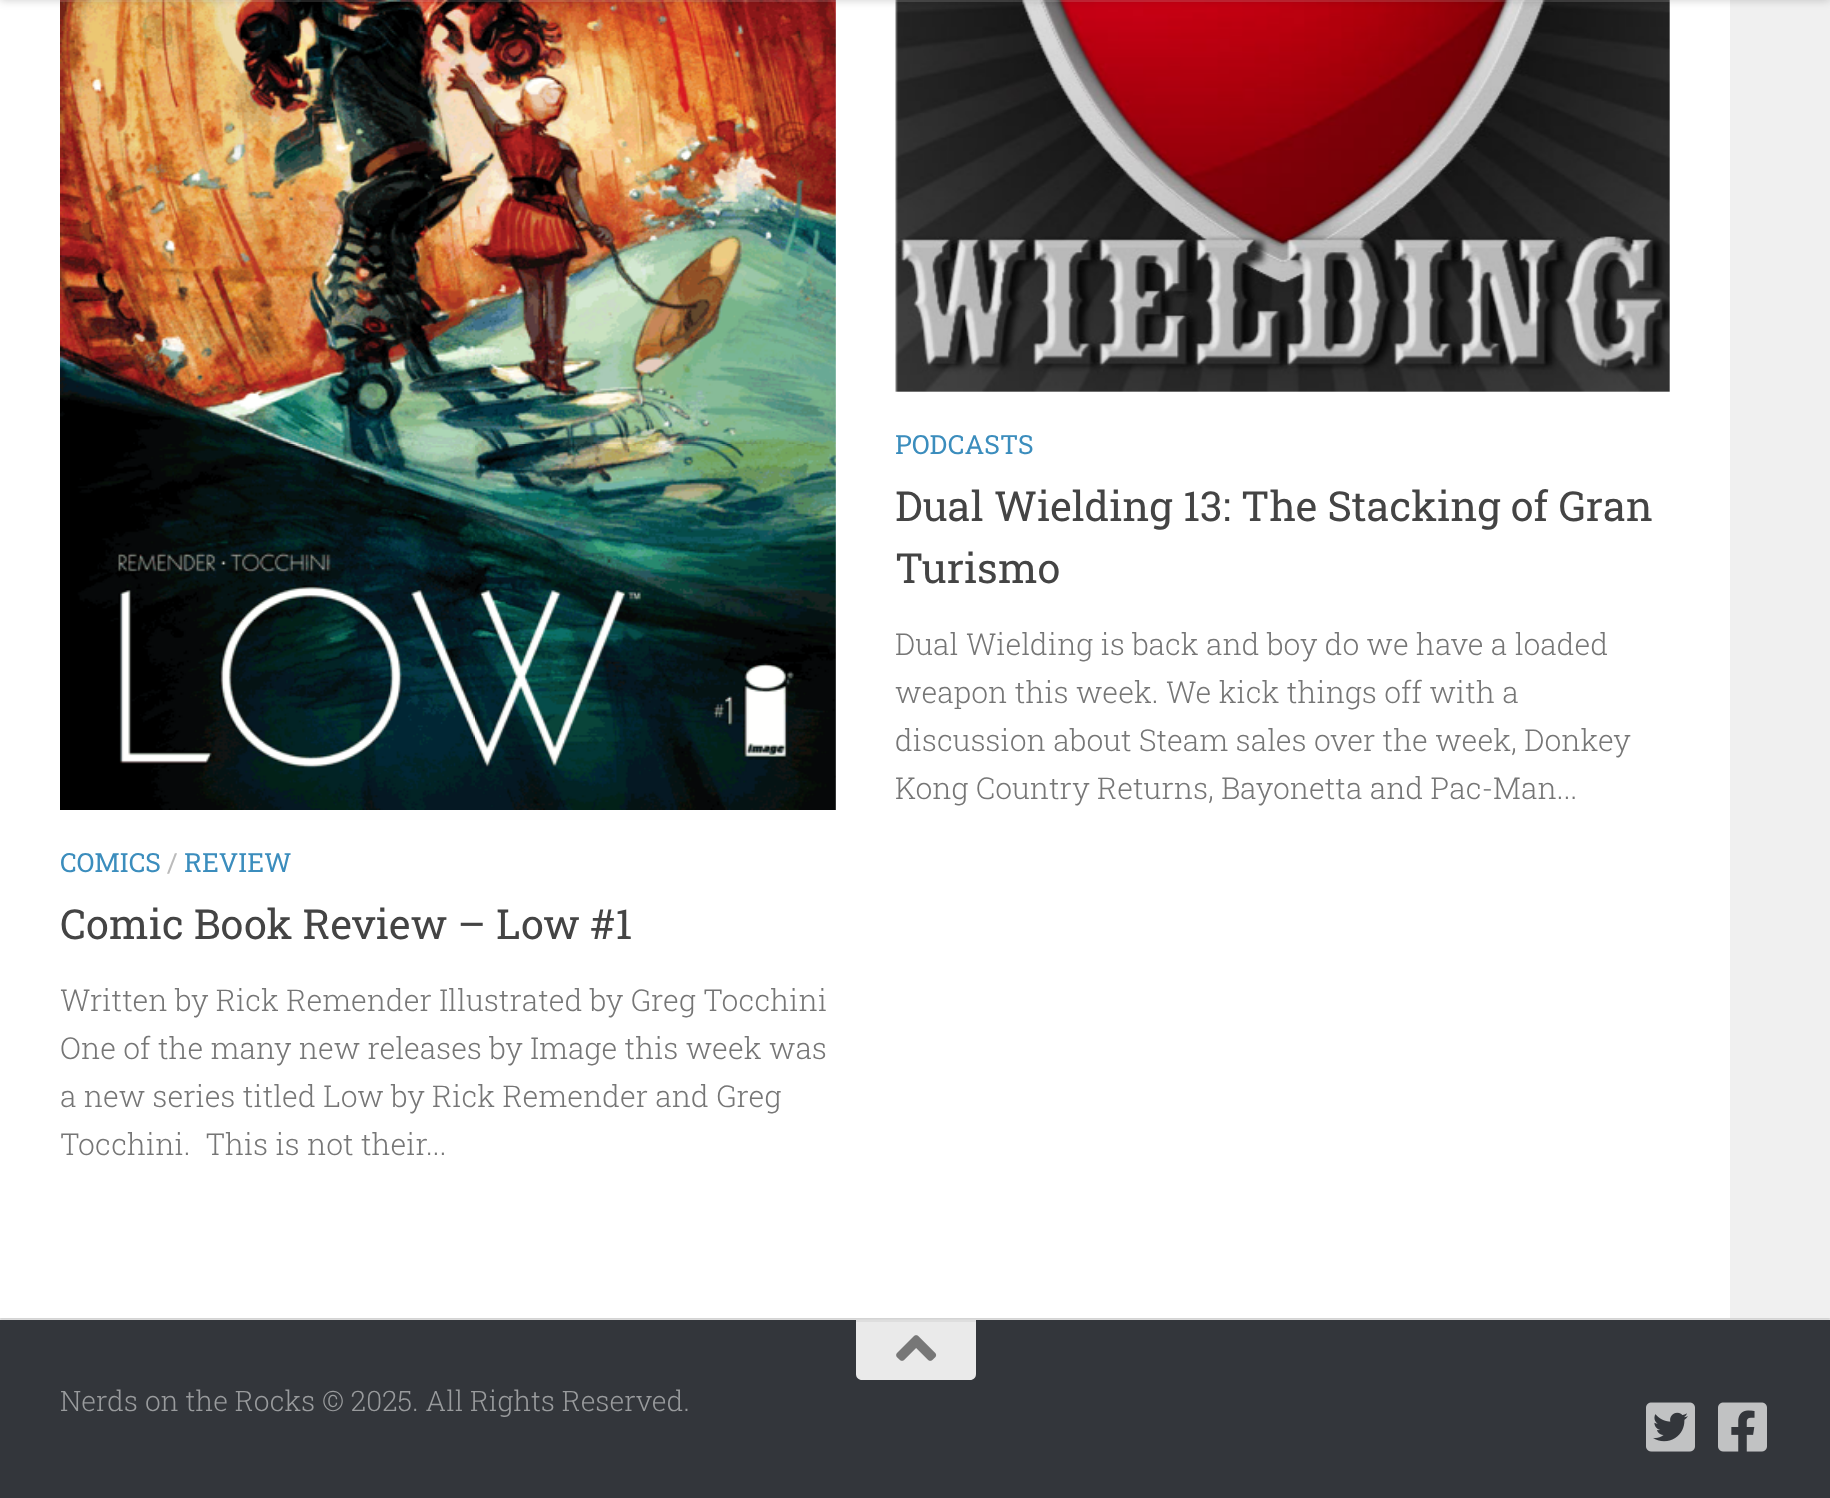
<svg xmlns="http://www.w3.org/2000/svg" xmlns:xlink="http://www.w3.org/1999/xlink" width="1830" height="1498" viewBox="0 0 1830 1498">
<style>
.cls-1{font:26.5px Roboto Slab;fill:#3b8dbd}
.cls-2{font:41.4px Roboto Slab;fill:#444444}
.cls-3{font:300 30.1px Roboto Slab;fill:#767676}
.cls-4{font:26.5px Roboto Slab;fill:#bbbbbb}
.cls-5{font:300 28.2px Roboto Slab;fill:#999b9d}
</style>
<rect width="100%" height="100%" fill="#eaeaea"/>
<rect fill="#000000" fill-opacity="0.1" filter="blur(1px)" x="0" y="-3" width="1830" height="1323"/>
<rect fill="#ffffff" x="0" y="0" width="1730" height="1318"/>
<image xlink:href="image0.png" x="895" y="0" width="775" height="392"/>
<image xlink:href="image1.png" x="60" y="0" width="776" height="810"/>
<rect fill="#ffffff" fill-opacity="0.15" x="60" y="0" width="1610" height="2"/>
<rect fill="#f0f0f0" x="1730" y="0" width="100" height="1318"/>
<rect fill="#000000" fill-opacity="0.2" filter="blur(5px)" x="0" y="-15" width="1830" height="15"/>
<rect fill="#33363b" x="0" y="1320" width="1830" height="178"/>
<path fill="#eaeaea" d="M856 1320H976V1374C976 1377.5 973.5 1380 970 1380H862C858.5 1380 856 1377.5 856 1374Z"/>
<rect fill="#dedede" x="856" y="1320" width="120" height="2"/>
<image xlink:href="image2.png" x="896" y="1335" width="41" height="26"/>
<image xlink:href="image3.png" x="1646" y="1402" width="49" height="50"/>
<image xlink:href="image4.png" x="1718" y="1402" width="49" height="50"/>
<text class="cls-1" x="895" y="454">PODCASTS</text>
<text class="cls-2"><tspan x="895" y="521">Dual Wielding 13: The Stacking of Gran</tspan><tspan x="895" y="583">Turismo</tspan></text>
<text class="cls-3"><tspan x="895" y="655">Dual Wielding is back and boy do we have a loaded</tspan><tspan x="895" y="703">weapon this week. We kick things off with a</tspan><tspan x="895" y="751">discussion about Steam sales over the week, Donkey</tspan><tspan x="895" y="799">Kong Country Returns, Bayonetta and Pac-Man...</tspan></text>
<text class="cls-1" x="60" y="872">COMICS</text>
<text class="cls-4" x="167" y="872">/</text>
<text class="cls-1" x="184" y="872">REVIEW</text>
<text class="cls-2" x="60" y="939">Comic Book Review – Low #1</text>
<text class="cls-3" xml:space="preserve"><tspan x="60" y="1011">Written by Rick Remender Illustrated by Greg Tocchini</tspan><tspan x="60" y="1059">One of the many new releases by Image this week was</tspan><tspan x="60" y="1107">a new series titled Low by Rick Remender and Greg</tspan><tspan x="60" y="1155">Tocchini.  This is not their...</tspan></text>
<text class="cls-5" x="60" y="1411">Nerds on the Rocks © 2025. All Rights Reserved.</text>
</svg>
